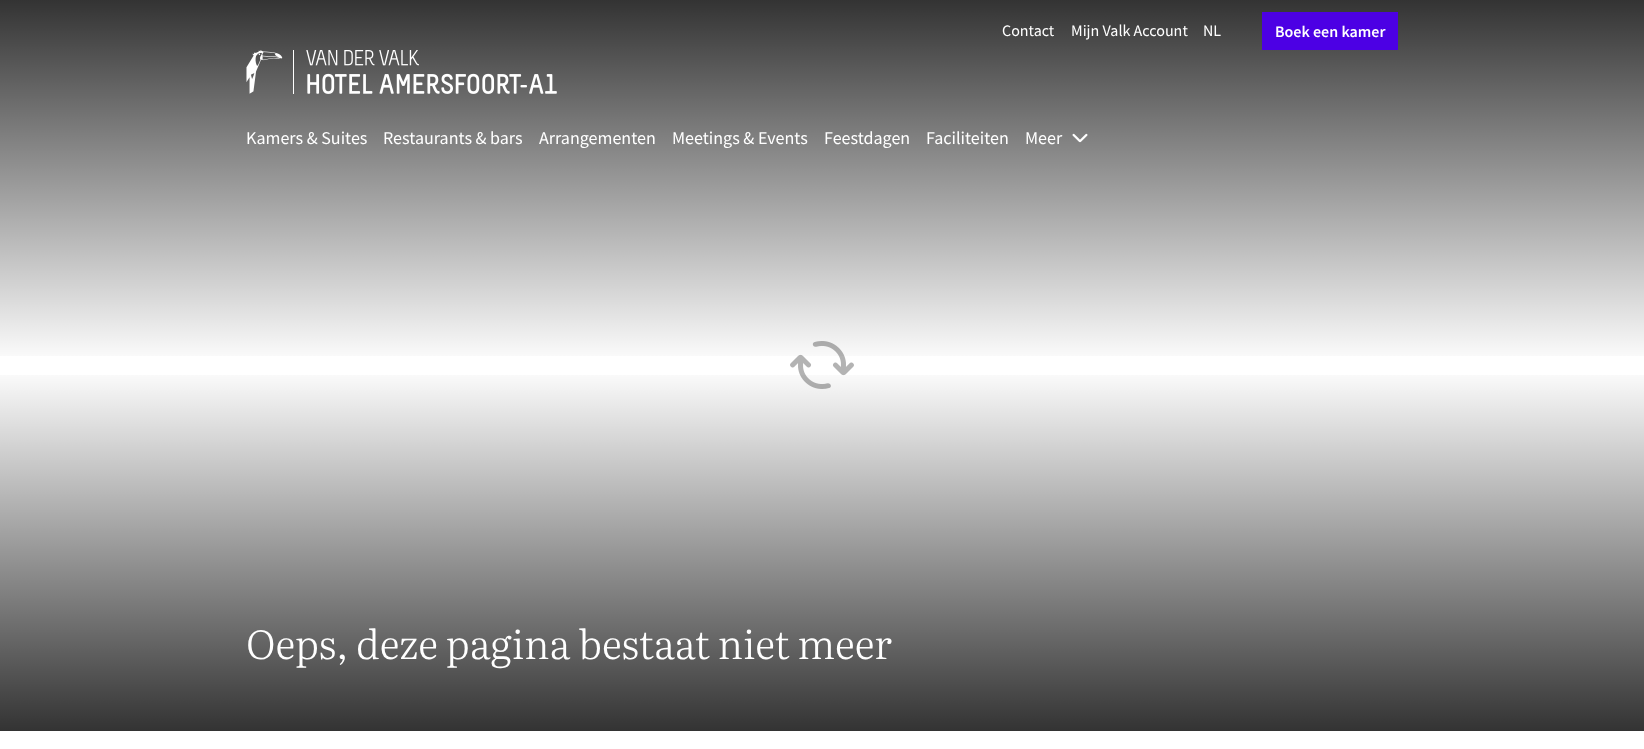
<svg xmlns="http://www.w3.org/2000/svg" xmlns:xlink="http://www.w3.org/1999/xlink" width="1644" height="749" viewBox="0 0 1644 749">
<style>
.cls-1{font:16px Source Sans Pro;fill:#ffffff}
.cls-2{font:600 16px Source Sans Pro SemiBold;fill:#ffffff}
.cls-3{font:18px Source Sans Pro;fill:#ffffff}
.cls-4{font:300 40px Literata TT;fill:#ffffff}
</style>
<defs>
<linearGradient id="g1" gradientUnits="userSpaceOnUse" x1="822" y1="0" x2="822" y2="731"><stop offset="0" stop-color="#000000" stop-opacity="0.8"/><stop offset="0.5" stop-color="#000000" stop-opacity="0"/></linearGradient>
<linearGradient id="g2" gradientUnits="userSpaceOnUse" x1="822" y1="731" x2="822" y2="0"><stop offset="0" stop-color="#000000" stop-opacity="0.8"/><stop offset="0.5" stop-color="#000000" stop-opacity="0"/></linearGradient>
</defs>
<rect width="100%" height="100%" fill="#ffffff"/>
<image xlink:href="image2.png" x="790" y="341" width="64" height="48"/>
<rect fill="url(#g1)" x="0" y="0" width="1644" height="356"/>
<rect fill="#4c00e4" x="1262" y="12" width="136" height="38"/>
<image xlink:href="image0.png" x="246" y="50" width="311" height="44"/>
<image xlink:href="image1.png" x="1072" y="133" width="16" height="10"/>
<rect fill="url(#g2)" x="0" y="375" width="1644" height="356"/>
<text class="cls-1" x="1002" y="36">Contact</text>
<text class="cls-1" x="1071" y="36">Mijn Valk Account</text>
<text class="cls-1" x="1203" y="36">NL</text>
<text class="cls-2" x="1275" y="37">Boek een kamer</text>
<text class="cls-3" x="246" y="144">Kamers &amp; Suites</text>
<text class="cls-3" x="383" y="144">Restaurants &amp; bars</text>
<text class="cls-3" x="539" y="144">Arrangementen</text>
<text class="cls-3" x="672" y="144">Meetings &amp; Events</text>
<text class="cls-3" x="824" y="144">Feestdagen</text>
<text class="cls-3" x="926" y="144">Faciliteiten</text>
<text class="cls-3" x="1025" y="144">Meer</text>
<text class="cls-4" x="246" y="659">Oeps, deze pagina bestaat niet meer</text>
</svg>
